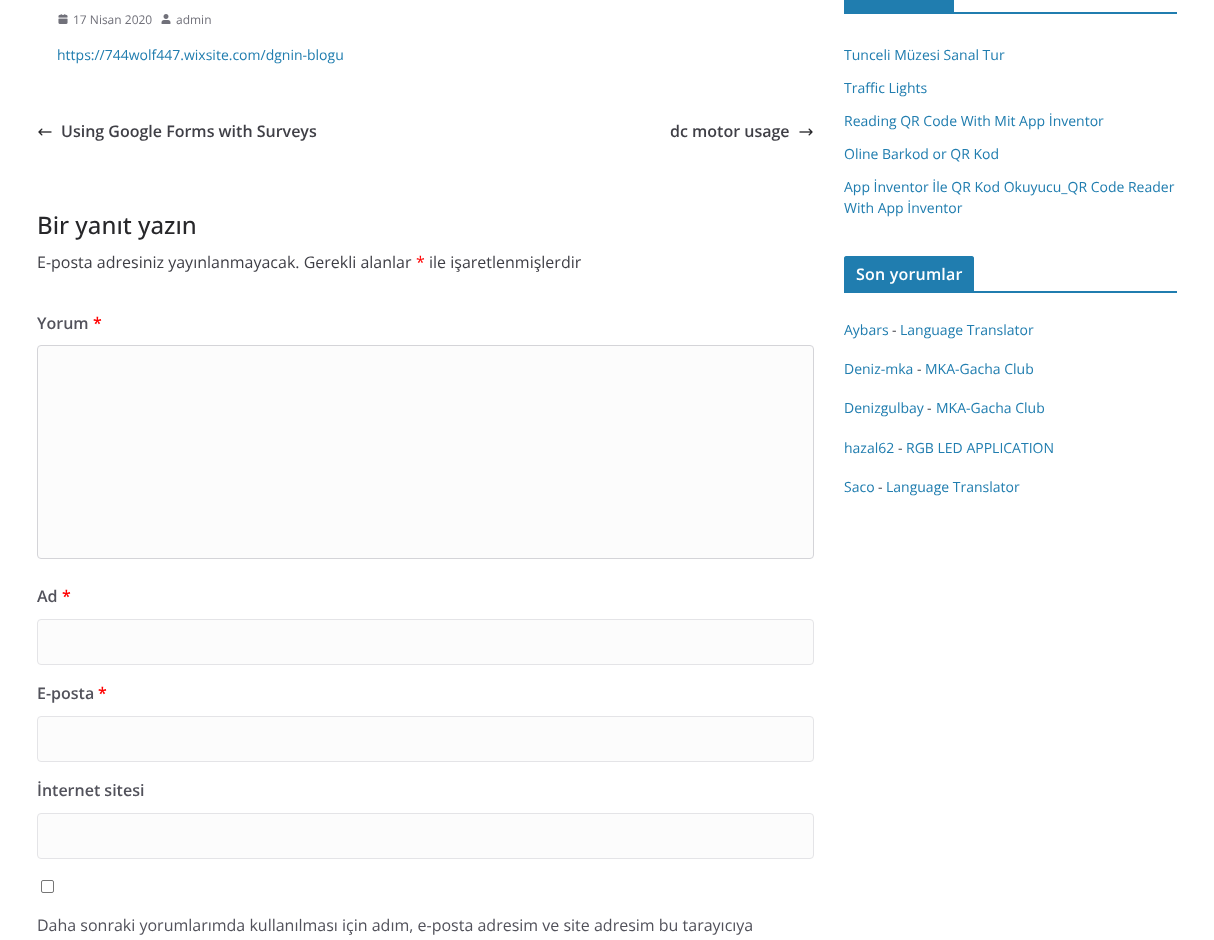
<svg xmlns="http://www.w3.org/2000/svg" xmlns:xlink="http://www.w3.org/1999/xlink" width="1214" height="940" viewBox="0 0 1214 940">
<style>
.cls-1{font:12px Open Sans;fill:#71717a}
.cls-2{font:14px Open Sans;fill:#207daf}
.cls-3{font:600 16px Open Sans;fill:#3f3f46}
.cls-4{font:500 24px Open Sans;fill:#27272a}
.cls-5{font:16px Open Sans;fill:#3f3f46}
.cls-6{font:16px Open Sans;fill:#ff0000}
.cls-7{font:600 16px Open Sans;fill:#52525b}
.cls-8{font:600 16px Open Sans;fill:#ff0000}
.cls-9{font:16px Open Sans;fill:#52525b}
.cls-10{font:600 16px Open Sans;letter-spacing:0.2px;fill:#ffffff}
.cls-11{font:14px Open Sans;fill:#3f3f46}
</style>
<rect width="100%" height="100%" fill="#ffffff"/>
<image xlink:href="image0.png" x="58" y="14" width="10" height="10"/>
<image xlink:href="image1.png" x="161" y="14" width="10" height="10"/>
<image xlink:href="image2.png" x="38" y="128" width="14" height="8"/>
<image xlink:href="image3.png" x="799" y="128" width="14" height="8"/>
<rect fill="#fcfcfc" stroke="#d4d4d8" x="37.5" y="345.5" width="776" height="213" rx="3.5"/>
<rect fill="#fcfcfc" stroke="#e4e4e7" x="37.5" y="619.5" width="776" height="45" rx="3.5"/>
<rect fill="#fcfcfc" stroke="#e4e4e7" x="37.5" y="716.5" width="776" height="45" rx="3.5"/>
<rect fill="#fcfcfc" stroke="#e4e4e7" x="37.5" y="813.5" width="776" height="45" rx="3.5"/>
<rect fill="none" stroke="#767676" x="41.5" y="880.5" width="12" height="12" rx="1.5"/>
<rect fill="#207daf" x="844" y="12" width="333" height="2"/>
<rect fill="#207daf" x="844" y="0" width="110" height="12"/>
<rect fill="#207daf" x="844" y="291" width="333" height="2"/>
<path fill="#207daf" d="M846 256H972C973 256 974 257 974 258V291H844V258C844 257 845 256 846 256Z"/>
<text class="cls-1" x="73" y="24">17 Nisan 2020</text>
<text class="cls-1" x="176" y="24">admin</text>
<text class="cls-2" x="57" y="60">https://744wolf447.wixsite.com/dgnin-blogu</text>
<text class="cls-3" x="61" y="137">Using Google Forms with Surveys</text>
<text class="cls-3" x="670" y="137">dc motor usage</text>
<text class="cls-4" x="37" y="234">Bir yanıt yazın</text>
<text class="cls-5" x="37" y="268">E-posta adresiniz yayınlanmayacak. Gerekli alanlar</text>
<text class="cls-6" x="416" y="268">*</text>
<text class="cls-5" x="429" y="268">ile işaretlenmişlerdir</text>
<text class="cls-7" x="37" y="329">Yorum</text>
<text class="cls-8" x="93" y="329">*</text>
<text class="cls-7" x="37" y="602">Ad</text>
<text class="cls-8" x="62" y="602">*</text>
<text class="cls-7" x="37" y="699">E-posta</text>
<text class="cls-8" x="98" y="699">*</text>
<text class="cls-7" x="37" y="796">İnternet sitesi</text>
<text class="cls-9" x="37" y="931">Daha sonraki yorumlarımda kullanılması için adım, e-posta adresim ve site adresim bu tarayıcıya</text>
<text class="cls-2" x="844" y="60">Tunceli Müzesi Sanal Tur</text>
<text class="cls-2" x="844" y="93">Traffic Lights</text>
<text class="cls-2" x="844" y="126">Reading QR Code With Mit App İnventor</text>
<text class="cls-2" x="844" y="159">Oline Barkod or QR Kod</text>
<text class="cls-2"><tspan x="844" y="192">App İnventor İle QR Kod Okuyucu_QR Code Reader</tspan><tspan x="844" y="213">With App İnventor</tspan></text>
<text class="cls-10" x="856" y="280">Son yorumlar</text>
<text class="cls-2" x="844" y="335">Aybars</text>
<text class="cls-11" x="892" y="335">-</text>
<text class="cls-2" x="900" y="335">Language Translator</text>
<text class="cls-2" x="844" y="374">Deniz-mka</text>
<text class="cls-11" x="917" y="374">-</text>
<text class="cls-2" x="925" y="374">MKA-Gacha Club</text>
<text class="cls-2" x="844" y="413">Denizgulbay</text>
<text class="cls-11" x="927" y="413">-</text>
<text class="cls-2" x="936" y="413">MKA-Gacha Club</text>
<text class="cls-2" x="844" y="453">hazal62</text>
<text class="cls-11" x="898" y="453">-</text>
<text class="cls-2" x="906" y="453">RGB LED APPLICATION</text>
<text class="cls-2" x="844" y="492">Saco</text>
<text class="cls-11" x="878" y="492">-</text>
<text class="cls-2" x="886" y="492">Language Translator</text>
</svg>
